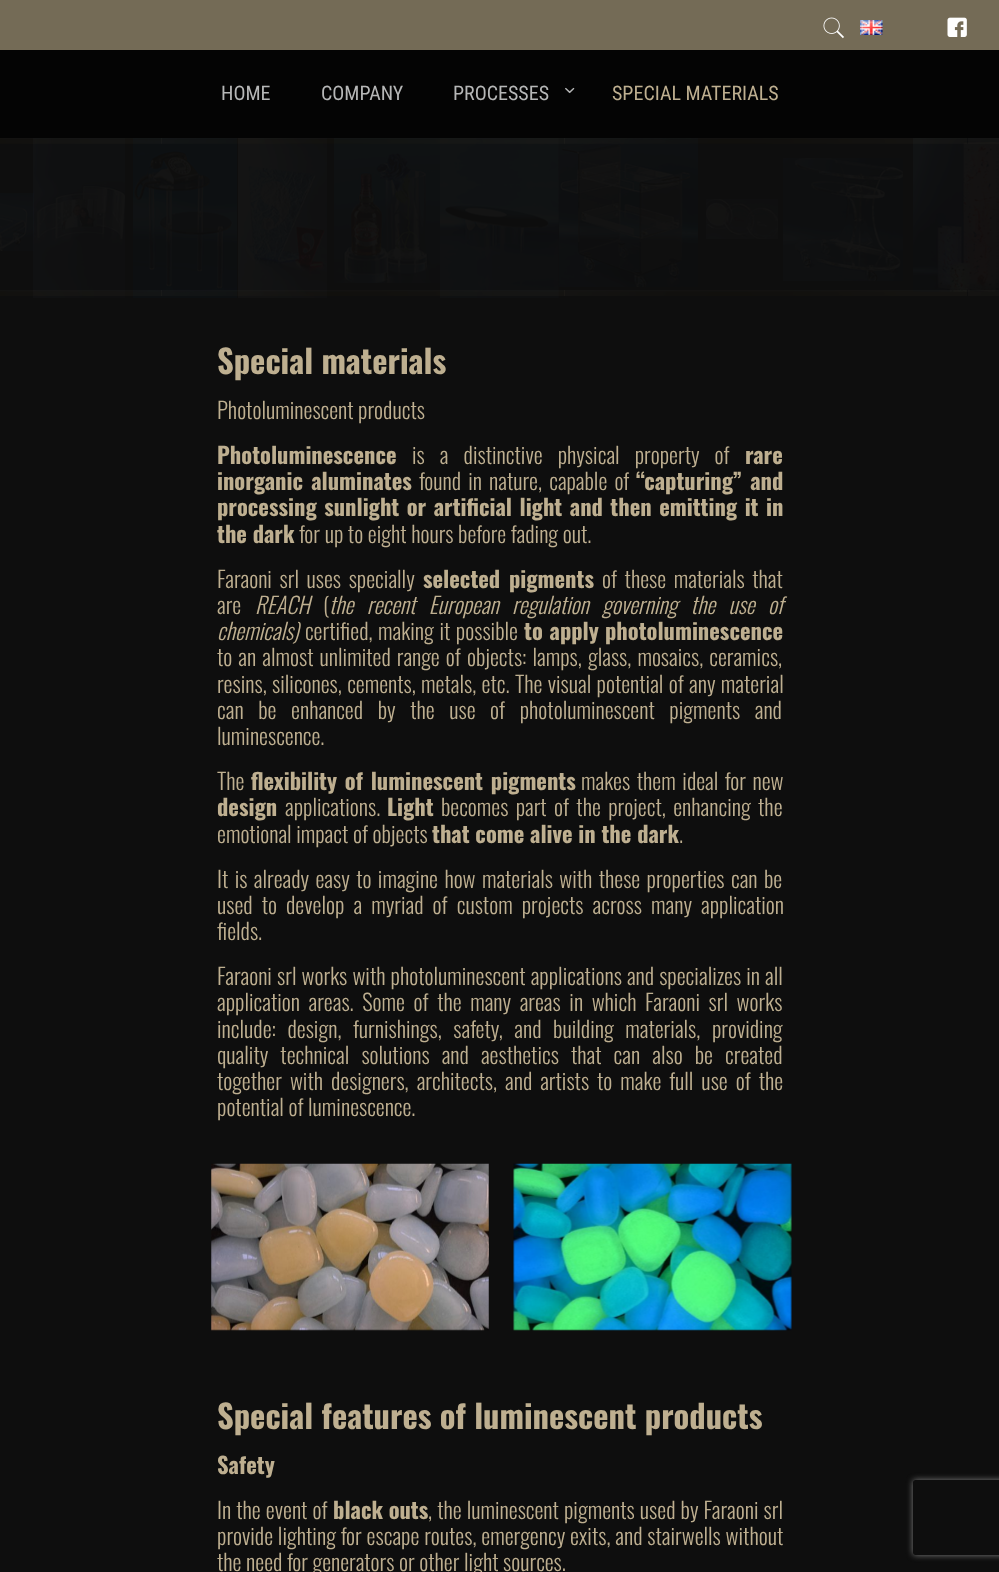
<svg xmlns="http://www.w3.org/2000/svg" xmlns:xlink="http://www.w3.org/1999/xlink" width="999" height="1572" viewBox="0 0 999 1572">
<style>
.cls-1{font:20px Roboto Condensed;fill:#b6b7b7}
.cls-2{font:20px Roboto Condensed;fill:#beaf90}
.cls-3{font:bold 32.5px Oswald;fill:#beaf90}
.cls-4{font:300 22.5px Oswald;fill:#beaf90}
.cls-5{font:bold 22.5px Oswald;fill:#beaf90}
.cls-6{font:italic 300 22.5px Oswald;fill:#beaf90}
</style>
<defs>
<clipPath id="clip1"><path d="M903 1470H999V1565H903ZM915.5 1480H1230.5C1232 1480 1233 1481 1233 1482.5V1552.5C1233 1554 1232 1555 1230.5 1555H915.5C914 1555 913 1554 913 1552.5V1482.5C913 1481 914 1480 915.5 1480Z" clip-rule="evenodd"/></clipPath>
</defs>
<rect width="100%" height="100%" fill="#0e0e0e"/>
<rect fill="#040404" x="0" y="50" width="999" height="88"/>
<rect fill="#746b56" x="0" y="0" width="999" height="50"/>
<image xlink:href="image0.png" x="823" y="17" width="21" height="22"/>
<image xlink:href="image1.png" x="860" y="20" width="23" height="15"/>
<image xlink:href="image2.png" x="947" y="17" width="20" height="20"/>
<image xlink:href="image3.png" x="565" y="87" width="10" height="7"/>
<image xlink:href="image5.png" x="33" y="138" width="92" height="160"/>
<image xlink:href="image6.png" x="133" y="138" width="104" height="160"/>
<image xlink:href="image4.png" x="0" y="138" width="162" height="6"/>
<image xlink:href="image8.png" x="238" y="138" width="89" height="160"/>
<image xlink:href="image9.png" x="334" y="138" width="106" height="145"/>
<image xlink:href="image10.png" x="440" y="138" width="119" height="160"/>
<image xlink:href="image11.png" x="559" y="138" width="139" height="149"/>
<image xlink:href="image7.png" x="161" y="138" width="404" height="6"/>
<image xlink:href="image13.png" x="913" y="138" width="86" height="154"/>
<image xlink:href="image12.png" x="564" y="138" width="403" height="6"/>
<image xlink:href="image14.png" x="968" y="138" width="31" height="6"/>
<image xlink:href="image15.png" x="0" y="193" width="34" height="58"/>
<image xlink:href="image16.png" x="706" y="199" width="72" height="40"/>
<image xlink:href="image17.png" x="783" y="158" width="120" height="123"/>
<image xlink:href="image18.png" x="0" y="290" width="162" height="6"/>
<image xlink:href="image19.png" x="161" y="290" width="404" height="6"/>
<image xlink:href="image20.png" x="564" y="290" width="403" height="6"/>
<image xlink:href="image21.png" x="968" y="290" width="31" height="6"/>
<image xlink:href="image22.png" x="211" y="1163" width="278" height="168"/>
<image xlink:href="image23.png" x="513" y="1163" width="279" height="168"/>
<g clip-path="url(#clip1)">
<rect fill="#808080" filter="blur(3px)" x="913" y="1480" width="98" height="75" rx="2.5"/>
</g>
<text class="cls-1" x="221" y="100">HOME</text>
<text class="cls-1" x="321" y="100">COMPANY</text>
<text class="cls-1" x="453" y="100">PROCESSES</text>
<text class="cls-2" x="612" y="100">SPECIAL MATERIALS</text>
<text class="cls-3" x="217" y="374">Special materials</text>
<text class="cls-4" x="217" y="419">Photoluminescent products</text>
<text class="cls-5" x="217" y="464">Photoluminescence</text>
<text class="cls-4" x="412" y="464" word-spacing="10.5">is a distinctive physical property of</text>
<text class="cls-5" x="745" y="464">rare</text>
<text class="cls-5" x="217" y="490" word-spacing="2.5">inorganic aluminates</text>
<text class="cls-4" x="419" y="490" word-spacing="2.5">found in nature, capable of</text>
<text class="cls-5" x="636" y="490" word-spacing="2.5">“capturing” and</text>
<text class="cls-5"><tspan x="217" y="516" word-spacing="1.75">processing sunlight or artificial light and then emitting it in</tspan><tspan x="217" y="543">the dark</tspan></text>
<text class="cls-4" x="299" y="543">for up to eight hours before fading out.</text>
<text class="cls-4" x="217" y="588" word-spacing="3">Faraoni srl uses specially</text>
<text class="cls-5" x="423" y="588" word-spacing="3">selected pigments</text>
<text class="cls-4" x="602" y="588" word-spacing="3">of these materials that</text>
<text class="cls-4" x="217" y="614">are</text>
<text class="cls-6" x="255" y="614">REACH</text>
<text class="cls-4" x="323" y="614">(</text>
<text class="cls-6" x="329" y="614" word-spacing="8.75">the recent European regulation governing the use of</text>
<text class="cls-6" x="217" y="640">chemicals)</text>
<text class="cls-4" x="305" y="640" word-spacing="1">certified, making it possible</text>
<text class="cls-5" x="524" y="640" word-spacing="1">to apply</text>
<text class="cls-5" x="605" y="640">photoluminescence</text>
<text class="cls-4"><tspan x="217" y="666" word-spacing="1.5">to an almost unlimited range of objects: lamps, glass, mosaics, ceramics,</tspan><tspan x="217" y="693" word-spacing="0.75">resins, silicones, cements, metals, etc. The visual potential of any material</tspan><tspan x="217" y="719" word-spacing="10">can be enhanced by the use of photoluminescent pigments and</tspan><tspan x="217" y="745">luminescence.</tspan></text>
<text class="cls-4" x="217" y="790">The</text>
<text class="cls-5" x="251" y="790" word-spacing="2">flexibility of luminescent pigments</text>
<text class="cls-4" x="581" y="790" word-spacing="2">makes them ideal for new</text>
<text class="cls-5" x="217" y="816">design</text>
<text class="cls-4" x="285" y="816">applications.</text>
<text class="cls-5" x="387" y="816">Light</text>
<text class="cls-4" x="441" y="816" word-spacing="2.75">becomes part of the project, enhancing the</text>
<text class="cls-4" x="217" y="843">emotional impact of objects</text>
<text class="cls-5" x="432" y="843">that come alive in the dark</text>
<text class="cls-4" x="679" y="843">.</text>
<text class="cls-4"><tspan x="217" y="888" word-spacing="1.8">It is already easy to imagine how materials with these properties can be</tspan><tspan x="217" y="914" word-spacing="4.5">used to develop a myriad of custom projects across many application</tspan><tspan x="217" y="940">fields.</tspan></text>
<text class="cls-4"><tspan x="217" y="985" word-spacing="0.5">Faraoni srl works with photoluminescent applications and specializes in all</tspan><tspan x="217" y="1011" word-spacing="4">application areas. Some of the many areas in which Faraoni srl works</tspan><tspan x="217" y="1038" word-spacing="7">include: design, furnishings, safety, and building materials, providing</tspan><tspan x="217" y="1064" word-spacing="7.5">quality technical solutions and aesthetics that can also be created</tspan><tspan x="217" y="1090" word-spacing="3.4">together with designers, architects, and artists to make full use of the</tspan><tspan x="217" y="1116">potential of luminescence.</tspan></text>
<text class="cls-3" x="217" y="1429">Special features of luminescent products</text>
<text class="cls-5" x="217" y="1474">Safety</text>
<text class="cls-4" x="217" y="1519" word-spacing="0.5">In the event of</text>
<text class="cls-5" x="333" y="1519">black outs</text>
<text class="cls-4" x="428" y="1519" word-spacing="0.5">, the luminescent pigments used by Faraoni srl</text>
<text class="cls-4"><tspan x="217" y="1545" word-spacing="0.25">provide lighting for escape routes, emergency exits, and stairwells without</tspan><tspan x="217" y="1571">the need for generators or other light sources.</tspan></text>
</svg>
